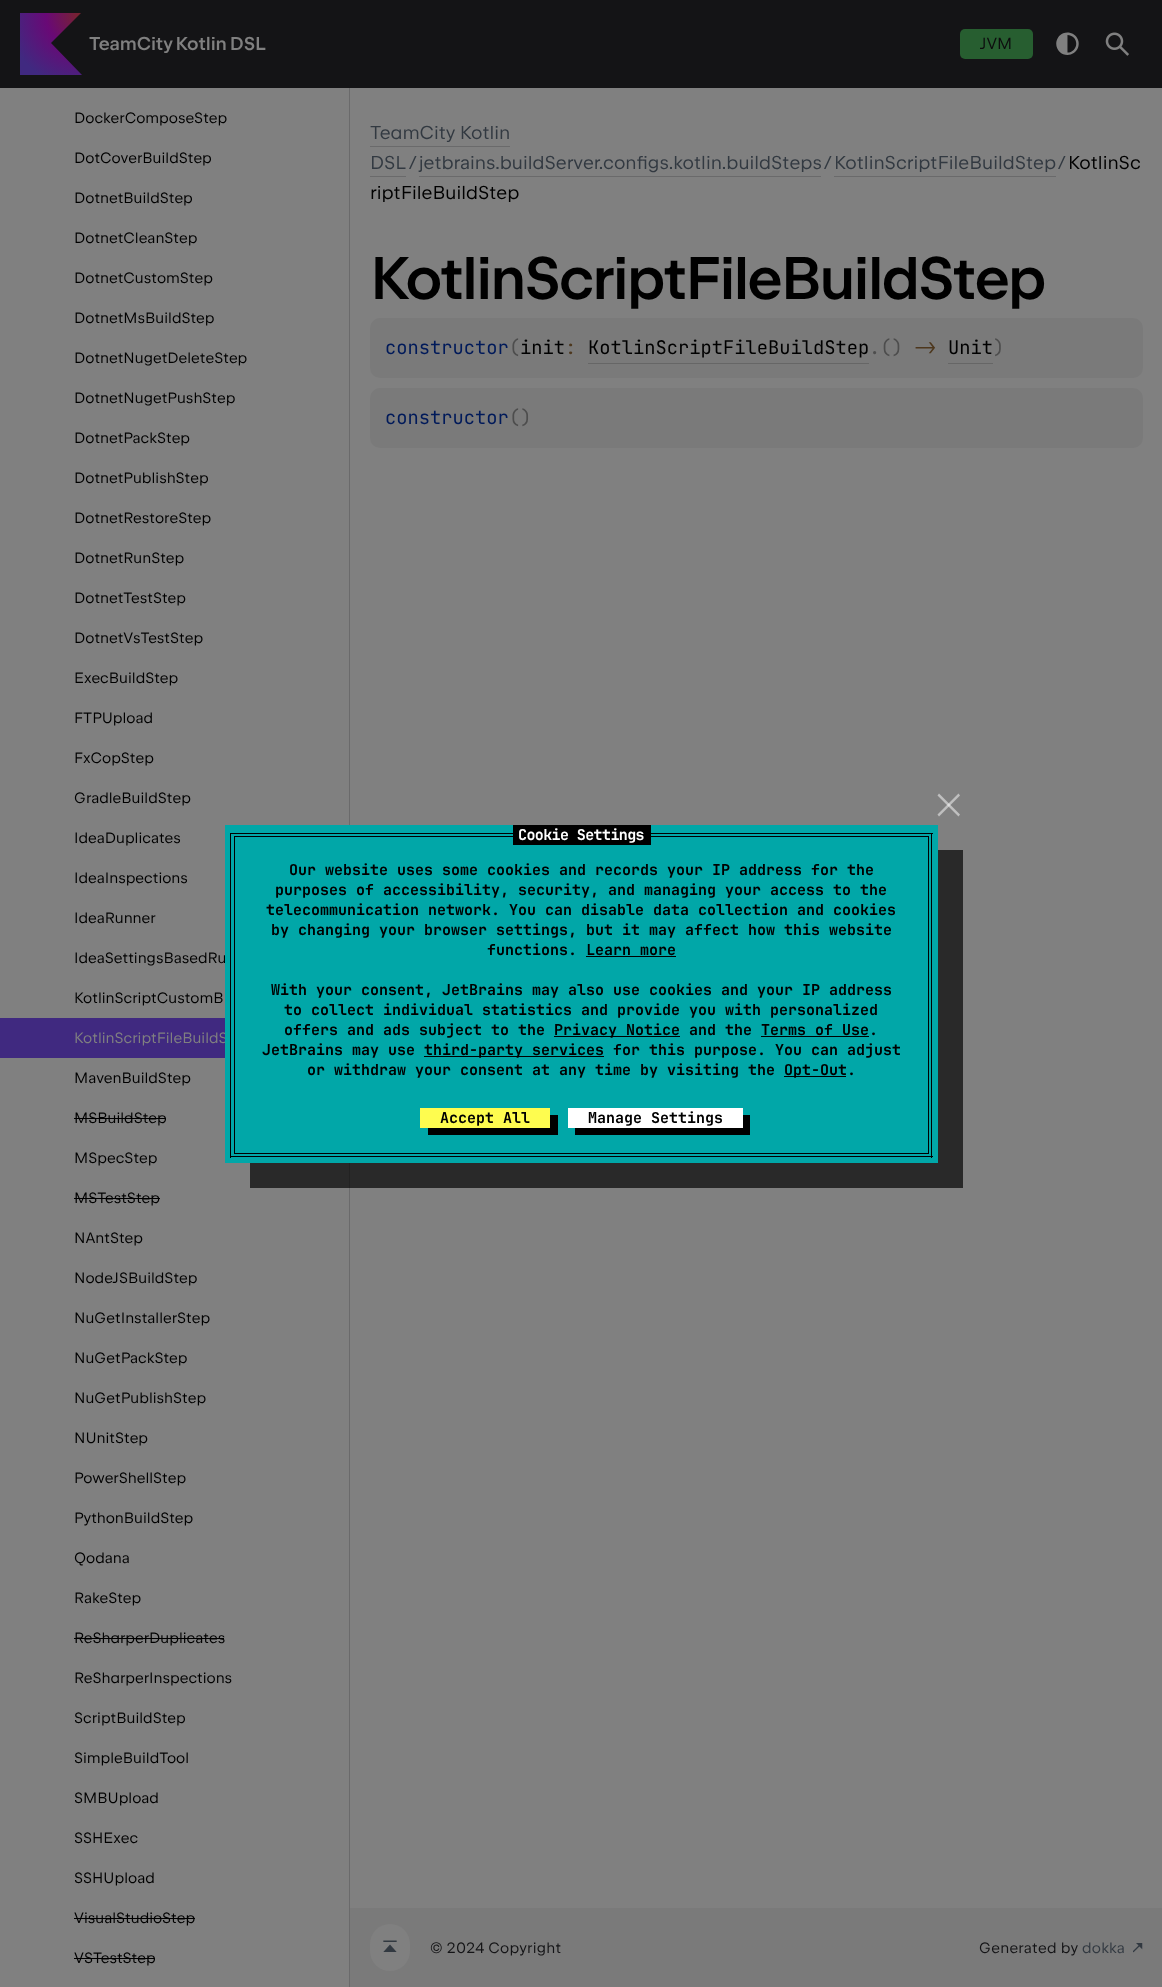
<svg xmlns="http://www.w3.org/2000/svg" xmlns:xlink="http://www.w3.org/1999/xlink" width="1162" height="1987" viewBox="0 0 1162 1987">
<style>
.cls-1{font:500 18.75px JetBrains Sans;letter-spacing:-0.1px;fill:#808080}
.cls-2{font:16px JetBrains Sans;fill:#0d0d0e}
.cls-3{font:15px JetBrains Sans;fill:#000000}
.cls-4{font:15px JetBrains Sans;fill:#808080}
.cls-5{font:18.75px JetBrains Sans;fill:#323941}
.cls-6{font:18.75px JetBrains Sans;fill:#000000}
.cls-7{font:500 60px JetBrains Sans;letter-spacing:-1.9px;fill:#000000}
.cls-8{font:18.75px JetBrains Mono;fill:#001a5a}
.cls-9{font:18.75px JetBrains Mono;fill:#4d4d4d}
.cls-10{font:18.75px JetBrains Mono;fill:#000000}
.cls-11{font:18.75px JetBrains Mono;fill:#4d371d}
.cls-12{font:15px JetBrains Sans;letter-spacing:0.25px;fill:#141416}
.cls-13{font:15px JetBrains Sans;letter-spacing:0.25px;fill:#323941}
.cls-14{font:bold 15px JetBrains Mono;letter-spacing:-0.6px;fill:#ffffff}
.cls-15{font:bold 15px JetBrains Mono;fill:#000000}
</style>
<defs>
<clipPath id="clip1"><rect x="20" y="13" width="63" height="62"/></clipPath>
<radialGradient id="g1" gradientUnits="userSpaceOnUse" cx="80" cy="15" r="72"><stop offset="0" stop-color="#78242c"/><stop offset="0.47" stop-color="#690976"/><stop offset="1" stop-color="#402980"/></radialGradient>
</defs>
<rect width="100%" height="100%" fill="#808080"/>
<rect fill="#141416" x="0" y="0" width="1162" height="88"/>
<g clip-path="url(#clip1)">
<path fill="url(#g1)" d="M82 75H20V12H82L51 43Z"/>
</g>
<rect fill="#275e30" x="960" y="29" width="73" height="30" rx="5"/>
<image xlink:href="image0.png" x="1056" y="32" width="23" height="23"/>
<image xlink:href="image1.png" x="1105" y="32" width="24" height="24"/>
<rect fill="#6a6a6b" x="349" y="88" width="1" height="1899"/>
<rect fill="#402980" x="0" y="1018" width="225" height="40"/>
<rect fill="#000000" x="74" y="1118" width="92" height="1"/>
<rect fill="#000000" x="74" y="1198" width="86" height="1"/>
<rect fill="#000000" x="74" y="1638" width="150" height="1"/>
<rect fill="#000000" x="74" y="1918" width="89" height="1"/>
<rect fill="#000000" x="163" y="1918" width="32" height="1"/>
<rect fill="#000000" x="74" y="1958" width="81" height="1"/>
<rect fill="#6a6a6b" x="370" y="146" width="140" height="1"/>
<rect fill="#6a6a6b" x="370" y="176" width="36" height="1"/>
<rect fill="#6a6a6b" x="419" y="176" width="402" height="1"/>
<rect fill="#6a6a6b" x="834" y="176" width="222" height="1"/>
<rect fill="#7a7a7a" x="370" y="318" width="773" height="60" rx="10"/>
<rect fill="#666666" x="588" y="363" width="281" height="1"/>
<rect fill="#666666" x="948" y="363" width="45" height="1"/>
<rect fill="#7a7a7a" x="370" y="388" width="773" height="60" rx="10"/>
<rect fill="#7a7a7a" x="350" y="1908" width="812" height="79"/>
<rect fill="#808080" x="370" y="1924" width="40" height="47" rx="20"/>
<image xlink:href="image2.png" x="383" y="1940" width="14" height="12"/>
<image xlink:href="image3.png" x="1133" y="1943" width="10" height="10"/>
<path fill="#000000" fill-opacity="0.68" d="M250 1162V1188H963V850H938V1162Z"/>
<path fill="#bfbfbf" d="M937.5 814.5L958.5 793.5L960 795.5L939 816.5Z"/>
<path fill="#ffffff" fill-opacity="0.5" d="M939 793.5L960 814.5L958.5 816.5L937.5 795.5Z"/>
<text class="cls-1" x="89" y="50" word-spacing="-1">TeamCity Kotlin DSL</text>
<text class="cls-2" x="980" y="49">JVM</text>
<text class="cls-3" x="74" y="123">DockerComposeStep</text>
<text class="cls-3" x="74" y="163">DotCoverBuildStep</text>
<text class="cls-3" x="74" y="203">DotnetBuildStep</text>
<text class="cls-3" x="74" y="243">DotnetCleanStep</text>
<text class="cls-3" x="74" y="283">DotnetCustomStep</text>
<text class="cls-3" x="74" y="323">DotnetMsBuildStep</text>
<text class="cls-3" x="74" y="363">DotnetNugetDeleteStep</text>
<text class="cls-3" x="74" y="403">DotnetNugetPushStep</text>
<text class="cls-3" x="74" y="443">DotnetPackStep</text>
<text class="cls-3" x="74" y="483">DotnetPublishStep</text>
<text class="cls-3" x="74" y="523">DotnetRestoreStep</text>
<text class="cls-3" x="74" y="563">DotnetRunStep</text>
<text class="cls-3" x="74" y="603">DotnetTestStep</text>
<text class="cls-3" x="74" y="643">DotnetVsTestStep</text>
<text class="cls-3" x="74" y="683">ExecBuildStep</text>
<text class="cls-3" x="74" y="723">FTPUpload</text>
<text class="cls-3" x="74" y="763">FxCopStep</text>
<text class="cls-3" x="74" y="803">GradleBuildStep</text>
<text class="cls-3" x="74" y="843">IdeaDuplicates</text>
<text class="cls-3" x="74" y="883">IdeaInspections</text>
<text class="cls-3" x="74" y="923">IdeaRunner</text>
<text class="cls-3" x="74" y="963">IdeaSettingsBasedRu</text>
<text class="cls-3" x="74" y="1003">KotlinScriptCustomB</text>
<text class="cls-4" x="74" y="1043">KotlinScriptFileBuildS</text>
<text class="cls-3" x="74" y="1083">MavenBuildStep</text>
<text class="cls-3" x="74" y="1123">MSBuildStep</text>
<text class="cls-3" x="74" y="1163">MSpecStep</text>
<text class="cls-3" x="74" y="1203">MSTestStep</text>
<text class="cls-3" x="74" y="1243">NAntStep</text>
<text class="cls-3" x="74" y="1283">NodeJSBuildStep</text>
<text class="cls-3" x="74" y="1323">NuGetInstallerStep</text>
<text class="cls-3" x="74" y="1363">NuGetPackStep</text>
<text class="cls-3" x="74" y="1403">NuGetPublishStep</text>
<text class="cls-3" x="74" y="1443">NUnitStep</text>
<text class="cls-3" x="74" y="1483">PowerShellStep</text>
<text class="cls-3" x="74" y="1523">PythonBuildStep</text>
<text class="cls-3" x="74" y="1563">Qodana</text>
<text class="cls-3" x="74" y="1603">RakeStep</text>
<text class="cls-3" x="74" y="1643">ReSharperDuplicates</text>
<text class="cls-3" x="74" y="1683">ReSharperInspections</text>
<text class="cls-3" x="74" y="1723">ScriptBuildStep</text>
<text class="cls-3" x="74" y="1763">SimpleBuildTool</text>
<text class="cls-3" x="74" y="1803">SMBUpload</text>
<text class="cls-3" x="74" y="1843">SSHExec</text>
<text class="cls-3" x="74" y="1883">SSHUpload</text>
<text class="cls-3" x="74" y="1923">VisualStudio</text>
<text class="cls-3" x="162" y="1923">Step</text>
<text class="cls-3" x="74" y="1963">VSTestStep</text>
<text class="cls-5"><tspan x="370" y="139">TeamCity Kotlin</tspan><tspan x="370" y="169">DSL</tspan></text>
<text class="cls-5" x="409" y="169">/</text>
<text class="cls-5" x="419" y="169">jetbrains.buildServer.configs.kotlin.buildSteps</text>
<text class="cls-5" x="824" y="169">/</text>
<text class="cls-5" x="834" y="169">KotlinScriptFileBuildStep</text>
<text class="cls-5" x="1058" y="169">/</text>
<text class="cls-6" x="1068" y="169">KotlinSc</text>
<text class="cls-6" x="370" y="199">riptFileBuildStep</text>
<text class="cls-7" x="370" y="299">KotlinScriptFileBuildStep</text>
<text class="cls-8" x="385" y="354">constructor</text>
<text class="cls-9" x="509" y="354">(</text>
<text class="cls-10" x="520" y="354">init</text>
<text class="cls-11" x="565" y="354">:</text>
<text class="cls-10" x="588" y="354">KotlinScriptFileBuildStep</text>
<text class="cls-9" x="869" y="354">.()</text>
<text class="cls-11" x="914" y="354">-&gt;</text>
<text class="cls-10" x="948" y="354">Unit</text>
<text class="cls-9" x="993" y="354">)</text>
<text class="cls-8" x="385" y="424">constructor</text>
<text class="cls-9" x="509" y="424">()</text>
<text class="cls-12" x="430" y="1953">© 2024 Copyright</text>
<text class="cls-12" x="979" y="1953">Generated by</text>
<text class="cls-13" x="1082" y="1953">dokka</text>
<rect fill="#01a7a8" x="225" y="825" width="713" height="338"/>
<rect fill="#000000" x="234" y="836" width="695" height="1"/>
<rect fill="#000000" x="928" y="836" width="1" height="318"/>
<rect fill="#000000" x="234" y="836" width="1" height="272"/>
<rect fill="#000000" x="230" y="833" width="703" height="1"/>
<rect fill="#000000" x="513" y="825" width="138" height="20"/>
<text class="cls-14" x="518" y="840">Cookie Settings</text>
<rect fill="#000000" x="931" y="833" width="1" height="325"/>
<rect fill="#000000" x="230" y="833" width="1" height="273"/>
<text class="cls-15" x="289" y="875">Our website uses some cookies and records your IP address for the</text>
<text class="cls-15" x="275" y="895">purposes of accessibility, security, and managing your access to the</text>
<text class="cls-15" x="266" y="915">telecommunication network. You can disable data collection and cookies</text>
<text class="cls-15" x="271" y="935">by changing your browser settings, but it may affect how this website</text>
<text class="cls-15" x="487" y="955">functions. Learn more</text>
<rect fill="#000000" x="586" y="956" width="90" height="1"/>
<text class="cls-15" x="271" y="995">With your consent, JetBrains may also use cookies and your IP address</text>
<text class="cls-15"><tspan x="284" y="1015">to collect individual statistics and provide you with personalized</tspan><tspan x="284" y="1035">offers and ads subject to the</tspan></text>
<rect fill="#000000" x="554" y="1036" width="126" height="1"/>
<text class="cls-15" x="554" y="1035">Privacy Notice and the Terms of Use.</text>
<rect fill="#000000" x="761" y="1036" width="108" height="1"/>
<text class="cls-15" x="262" y="1055">JetBrains may use</text>
<rect fill="#000000" x="424" y="1056" width="180" height="1"/>
<text class="cls-15" x="424" y="1055">third-party services for this purpose. You can adjust</text>
<text class="cls-15" x="307" y="1075">or withdraw your consent at any time by visiting the</text>
<rect fill="#000000" x="784" y="1076" width="62" height="1"/>
<text class="cls-15" x="784" y="1075">Opt-Out.</text>
<rect fill="#000000" x="234" y="1153" width="695" height="1"/>
<rect fill="#000000" x="234" y="1108" width="1" height="46"/>
<rect fill="#000000" x="230" y="1156" width="703" height="1"/>
<rect fill="#000000" x="230" y="1106" width="1" height="52"/>
<path fill="#000000" d="M428 1128V1135H558V1115H550V1128Z"/>
<rect fill="#fefc4f" x="420" y="1108" width="130" height="20"/>
<text class="cls-15" x="440" y="1123">Accept All</text>
<path fill="#000000" d="M575 1128V1135H750V1115H742V1128Z"/>
<rect fill="#ffffff" x="568" y="1108" width="175" height="20"/>
<text class="cls-15" x="588" y="1123">Manage Settings</text>
</svg>
